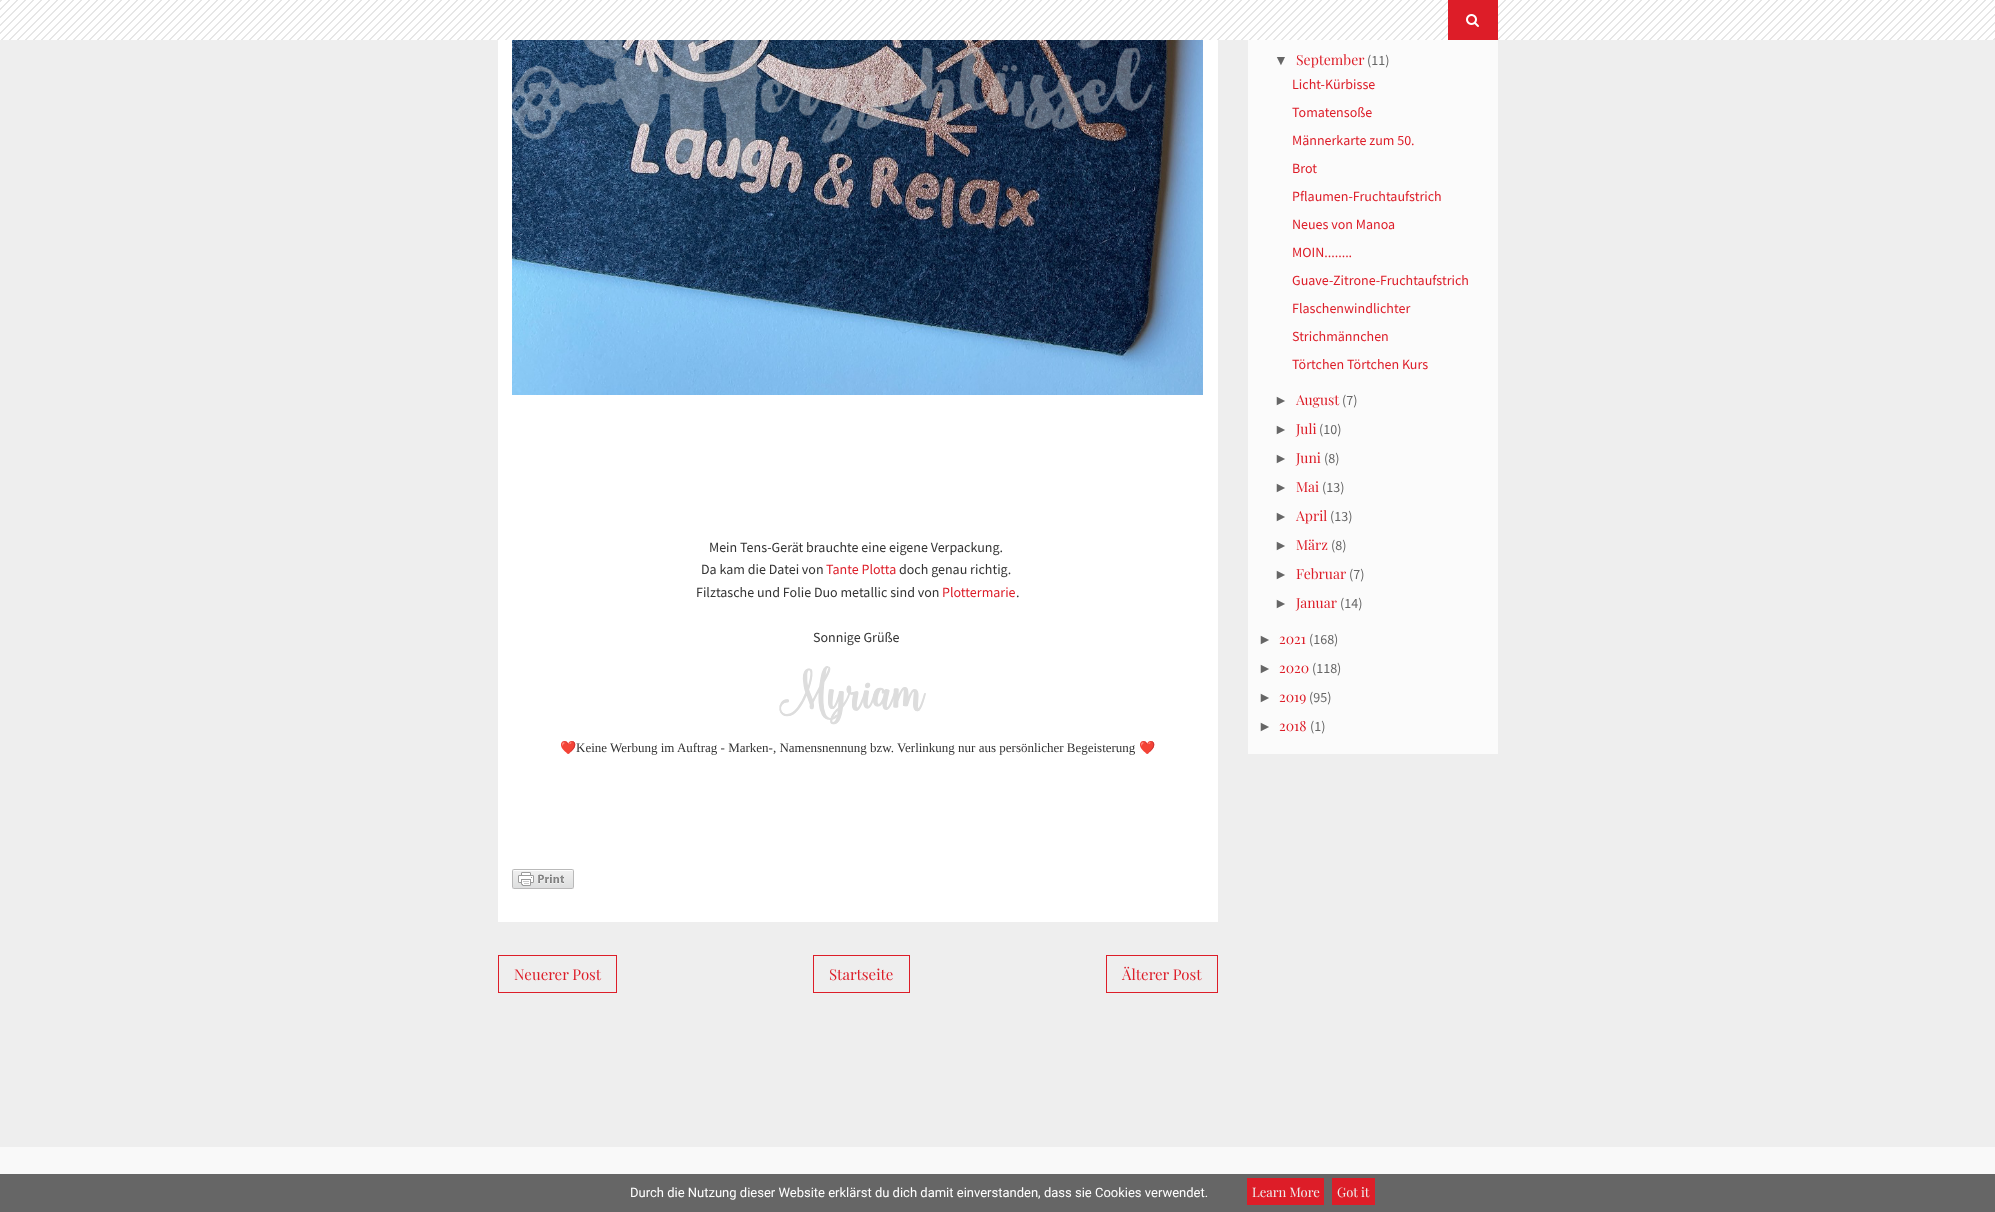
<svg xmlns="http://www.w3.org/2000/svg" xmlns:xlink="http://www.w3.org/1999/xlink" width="1995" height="1212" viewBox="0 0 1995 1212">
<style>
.cls-1{font:14px Source Sans Pro;fill:#333333}
.cls-2{font:14px Source Sans Pro;fill:#dd1d28}
.cls-3{font:13px Noto Color Emoji;fill:#333333}
.cls-4{font:13px Liberation Serif;fill:#333333}
.cls-5{font:15px Playfair Display;fill:#dd1d28}
.cls-6{font:14px Liberation Sans;fill:#666666}
.cls-7{font:14px Playfair Display;fill:#dd1d28}
.cls-8{font:14px Source Sans Pro;fill:#666666}
.cls-9{font:13px Roboto;fill:#ffffff}
.cls-10{font:13px Playfair Display;fill:#eeeeee}
</style>
<rect width="100%" height="100%" fill="#eeeeee"/>
<image xlink:href="image0.png" x="0" y="0" width="1995" height="40"/>
<rect fill="#dd1d28" x="1448" y="0" width="50" height="40"/>
<image xlink:href="image1.png" x="1466" y="14" width="13" height="13"/>
<rect fill="#ffffff" x="498" y="40" width="720" height="882"/>
<image xlink:href="image2.png" x="512" y="40" width="691" height="355"/>
<image xlink:href="image3.png" x="779" y="666" width="147" height="59"/>
<image xlink:href="image4.png" x="512" y="869" width="62" height="20"/>
<rect fill="none" stroke="#dd1d28" x="498.5" y="955.5" width="118" height="37"/>
<rect fill="none" stroke="#dd1d28" x="813.5" y="955.5" width="96" height="37"/>
<rect fill="none" stroke="#dd1d28" x="1106.5" y="955.5" width="111" height="37"/>
<rect fill="#fbfbfb" x="1248" y="40" width="250" height="714"/>
<rect fill="#f9f9f9" x="0" y="1147" width="1995" height="27"/>
<rect fill="#666666" x="0" y="1174" width="1995" height="38"/>
<rect fill="#dd1d28" x="1247" y="1178" width="77" height="27"/>
<rect fill="#dd1d28" x="1332" y="1178" width="43" height="27"/>
<text class="cls-1" x="709" y="552">Mein Tens-Gerät brauchte eine eigene Verpackung.</text>
<text class="cls-1" x="701" y="574">Da kam die Datei von</text>
<text class="cls-2" x="826" y="574">Tante Plotta</text>
<text class="cls-1" x="899" y="574">doch genau richtig.</text>
<text class="cls-1" x="696" y="597">Filztasche und Folie Duo metallic sind von</text>
<text class="cls-2" x="942" y="597">Plottermarie</text>
<text class="cls-1" x="1016" y="597">.</text>
<text class="cls-1" x="813" y="642">Sonnige Grüße</text>
<text class="cls-3" x="560" y="752">❤️</text>
<text class="cls-4" x="576" y="752">Keine Werbung im Auftrag - Marken-, Namensnennung bzw. Verlinkung nur aus persönlicher Begeisterung</text>
<text class="cls-3" x="1139" y="752">❤️</text>
<text class="cls-5" x="514" y="980">Neuerer Post</text>
<text class="cls-5" x="829" y="980">Startseite</text>
<text class="cls-5" x="1122" y="980">Älterer Post</text>
<text class="cls-6" x="1274" y="65">▼</text>
<text class="cls-7" x="1296" y="65">September</text>
<text class="cls-8" x="1367" y="65">(11)</text>
<text class="cls-2" x="1292" y="89">Licht-Kürbisse</text>
<text class="cls-2" x="1292" y="117">Tomatensoße</text>
<text class="cls-2" x="1292" y="145">Männerkarte zum 50.</text>
<text class="cls-2" x="1292" y="173">Brot</text>
<text class="cls-2" x="1292" y="201">Pflaumen-Fruchtaufstrich</text>
<text class="cls-2" x="1292" y="229">Neues von Manoa</text>
<text class="cls-2" x="1292" y="257">MOIN........</text>
<text class="cls-2" x="1292" y="285">Guave-Zitrone-Fruchtaufstrich</text>
<text class="cls-2" x="1292" y="313">Flaschenwindlichter</text>
<text class="cls-2" x="1292" y="341">Strichmännchen</text>
<text class="cls-2" x="1292" y="369">Törtchen Törtchen Kurs</text>
<text class="cls-6" x="1274" y="405">►</text>
<text class="cls-7" x="1296" y="405">August</text>
<text class="cls-8" x="1342" y="405">(7)</text>
<text class="cls-6" x="1274" y="434">►</text>
<text class="cls-7" x="1296" y="434">Juli</text>
<text class="cls-8" x="1319" y="434">(10)</text>
<text class="cls-6" x="1274" y="463">►</text>
<text class="cls-7" x="1296" y="463">Juni</text>
<text class="cls-8" x="1324" y="463">(8)</text>
<text class="cls-6" x="1274" y="492">►</text>
<text class="cls-7" x="1296" y="492">Mai</text>
<text class="cls-8" x="1322" y="492">(13)</text>
<text class="cls-6" x="1274" y="521">►</text>
<text class="cls-7" x="1296" y="521">April</text>
<text class="cls-8" x="1330" y="521">(13)</text>
<text class="cls-6" x="1274" y="550">►</text>
<text class="cls-7" x="1296" y="550">März</text>
<text class="cls-8" x="1331" y="550">(8)</text>
<text class="cls-6" x="1274" y="579">►</text>
<text class="cls-7" x="1296" y="579">Februar</text>
<text class="cls-8" x="1349" y="579">(7)</text>
<text class="cls-6" x="1274" y="608">►</text>
<text class="cls-7" x="1296" y="608">Januar</text>
<text class="cls-8" x="1340" y="608">(14)</text>
<text class="cls-6" x="1258" y="644">►</text>
<text class="cls-7" x="1279" y="644">2021</text>
<text class="cls-8" x="1309" y="644">(168)</text>
<text class="cls-6" x="1258" y="673">►</text>
<text class="cls-7" x="1279" y="673">2020</text>
<text class="cls-8" x="1312" y="673">(118)</text>
<text class="cls-6" x="1258" y="702">►</text>
<text class="cls-7" x="1279" y="702">2019</text>
<text class="cls-8" x="1309" y="702">(95)</text>
<text class="cls-6" x="1258" y="731">►</text>
<text class="cls-7" x="1279" y="731">2018</text>
<text class="cls-8" x="1310" y="731">(1)</text>
<text class="cls-9" x="630" y="1197">Durch die Nutzung dieser Website erklärst du dich damit einverstanden, dass sie Cookies verwendet.</text>
<text class="cls-10" x="1252" y="1197">Learn More</text>
<text class="cls-10" x="1337" y="1197">Got it</text>
</svg>
